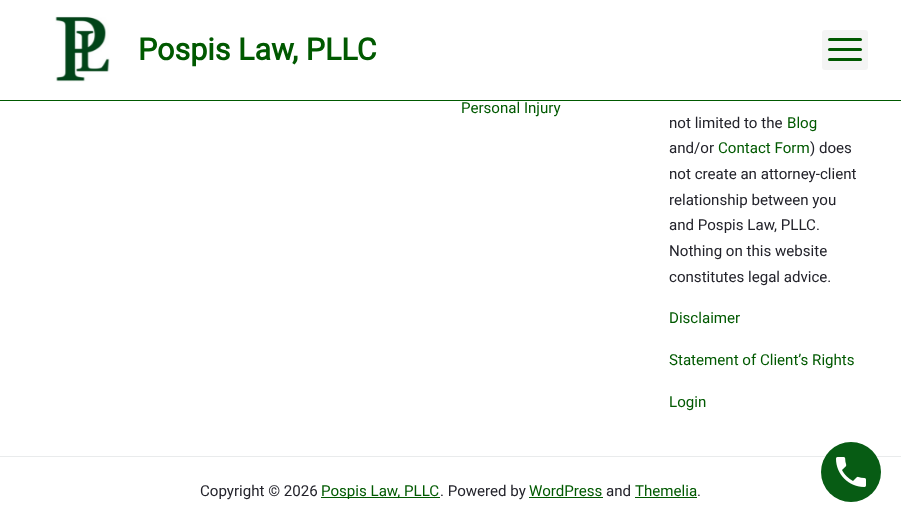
<svg xmlns="http://www.w3.org/2000/svg" xmlns:xlink="http://www.w3.org/1999/xlink" width="901" height="522" viewBox="0 0 901 522">
<style>
.cls-1{font:bold 30.5px Roboto;fill:#005900}
.cls-2{font:15.1px Roboto;fill:#005900}
.cls-3{font:15.1px Roboto;fill:#22222a}
</style>
<rect width="100%" height="100%" fill="#ffffff"/>
<image xlink:href="image0.png" x="55" y="16" width="55" height="66"/>
<rect fill="#f4f4f4" x="822" y="30" width="46" height="40" rx="3"/>
<rect fill="#005900" x="828" y="48" width="34" height="3" rx="1.5"/>
<rect fill="#005900" x="828" y="38" width="34" height="3" rx="1.5"/>
<rect fill="#005900" x="828" y="58" width="34" height="3" rx="1.5"/>
<rect fill="#005900" x="0" y="100" width="901" height="1"/>
<rect fill="#e9ebec" x="0" y="456" width="901" height="1"/>
<rect fill="#005900" x="321" y="497" width="119" height="1"/>
<rect fill="#005900" x="529" y="497" width="74" height="1"/>
<rect fill="#005900" x="635" y="497" width="62" height="1"/>
<circle fill="#075c14" cx="851" cy="472" r="30"/>
<image xlink:href="image1.png" x="836" y="457" width="30" height="30"/>
<text class="cls-1" x="138" y="60">Pospis Law, PLLC</text>
<text class="cls-2" x="461" y="113">Personal Injury</text>
<text class="cls-3" x="669" y="128">not limited to the</text>
<text class="cls-2" x="787" y="128">Blog</text>
<text class="cls-3" x="669" y="153">and/or</text>
<text class="cls-2" x="718" y="153">Contact Form</text>
<text class="cls-3" x="810" y="153">) does</text>
<text class="cls-3"><tspan x="669" y="179">not create an attorney-client</tspan><tspan x="669" y="205">relationship between you</tspan><tspan x="669" y="230">and Pospis Law, PLLC.</tspan><tspan x="669" y="256">Nothing on this website</tspan><tspan x="669" y="282">constitutes legal advice.</tspan></text>
<text class="cls-2" x="669" y="323">Disclaimer</text>
<text class="cls-2" x="669" y="365">Statement of Client’s Rights</text>
<text class="cls-2" x="669" y="407">Login</text>
<text class="cls-3" x="200" y="496">Copyright © 2026</text>
<text class="cls-2" x="321" y="496">Pospis Law, PLLC</text>
<text class="cls-3" x="440" y="496">. Powered by</text>
<text class="cls-2" x="529" y="496">WordPress</text>
<text class="cls-3" x="606" y="496">and</text>
<text class="cls-2" x="635" y="496">Themelia</text>
<text class="cls-3" x="697" y="496">.</text>
</svg>
